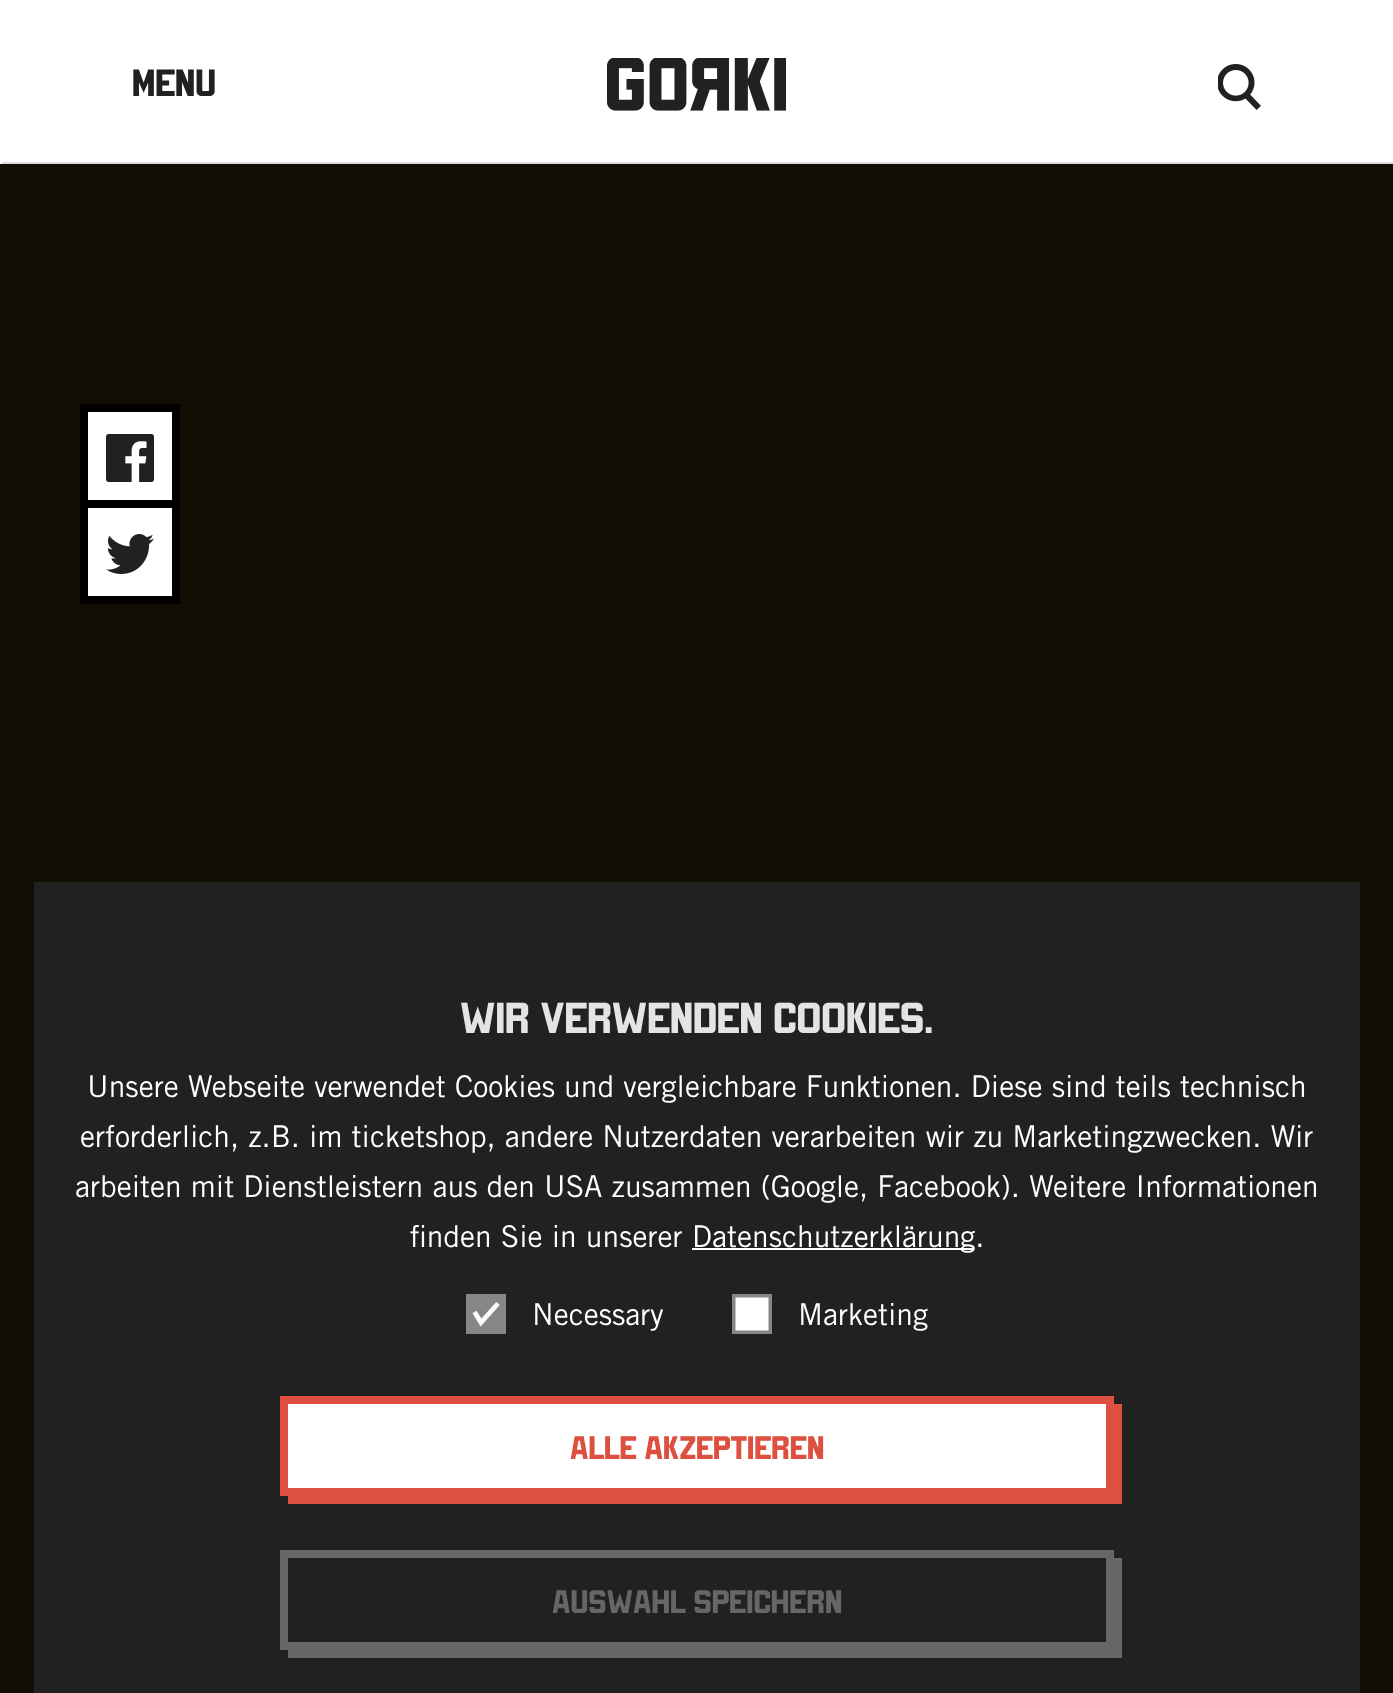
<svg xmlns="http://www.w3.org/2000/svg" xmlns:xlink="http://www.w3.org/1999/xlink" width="1393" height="1693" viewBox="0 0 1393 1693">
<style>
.cls-1{font:42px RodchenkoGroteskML;fill:#212121}
.cls-2{font:48px RodchenkoGroteskML;fill:#e4e4e4}
.cls-3{font:30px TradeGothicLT;fill:#ffffff}
.cls-4{font:36px RodchenkoGroteskML;fill:#dd4f3f}
.cls-5{font:36px RodchenkoGroteskML;fill:#666666}
</style>
<rect width="100%" height="100%" fill="#ffffff"/>
<image xlink:href="image0.png" x="607" y="58" width="179" height="53"/>
<image xlink:href="image1.png" x="1218" y="64" width="43" height="46"/>
<rect fill="#dddddd" x="2" y="162" width="1391" height="2"/>
<rect fill="#130e04" x="0" y="164" width="1393" height="1529"/>
<rect fill="#ffffff" stroke="#000000" stroke-width="8" x="84" y="408" width="92" height="96"/>
<image xlink:href="image2.png" x="106" y="434" width="48" height="48"/>
<rect fill="#ffffff" stroke="#000000" stroke-width="8" x="84" y="504" width="92" height="96"/>
<image xlink:href="image3.png" x="106" y="534" width="48" height="40"/>
<rect fill="#212121" x="34" y="882" width="1326" height="811"/>
<rect fill="#ffffff" x="692" y="1248" width="282" height="2"/>
<rect fill="#868686" x="466" y="1294" width="40" height="40"/>
<path fill="none" stroke="#fffafa" stroke-width="4.8" d="M474.5 1312L481 1322.5L498 1303.5"/>
<rect fill="#ffffff" stroke="#868686" stroke-width="3.5" x="733.75" y="1295.75" width="36.5" height="36.5"/>
<path fill="#dd4f3f" d="M288 1496V1504H1122V1404H1114V1496Z"/>
<rect fill="#ffffff" stroke="#dd4f3f" stroke-width="8" x="284" y="1400" width="826" height="92"/>
<path fill="#666666" d="M288 1650V1658H1122V1558H1114V1650Z"/>
<rect fill="none" stroke="#666666" stroke-width="8" x="284" y="1554" width="826" height="92"/>
<text class="cls-1" x="132" y="96">Menu</text>
<text class="cls-2" x="460" y="1033">Wir verwenden Cookies.</text>
<text class="cls-3" x="87" y="1097">Unsere Webseite verwendet Cookies und vergleichbare Funktionen. Diese sind teils technisch</text>
<text class="cls-3" x="80" y="1147">erforderlich, z.B. im ticketshop, andere Nutzerdaten verarbeiten wir zu Marketingzwecken. Wir</text>
<text class="cls-3" x="75" y="1197">arbeiten mit Dienstleistern aus den USA zusammen (Google, Facebook). Weitere Informationen</text>
<text class="cls-3" x="410" y="1247">finden Sie in unserer</text>
<text class="cls-3" x="692" y="1247">Datenschutzerklärung.</text>
<text class="cls-3" x="532" y="1325">Necessary</text>
<text class="cls-3" x="798" y="1325">Marketing</text>
<text class="cls-4" x="570" y="1459">Alle akzeptieren</text>
<text class="cls-5" x="552" y="1613">Auswahl speichern</text>
</svg>
